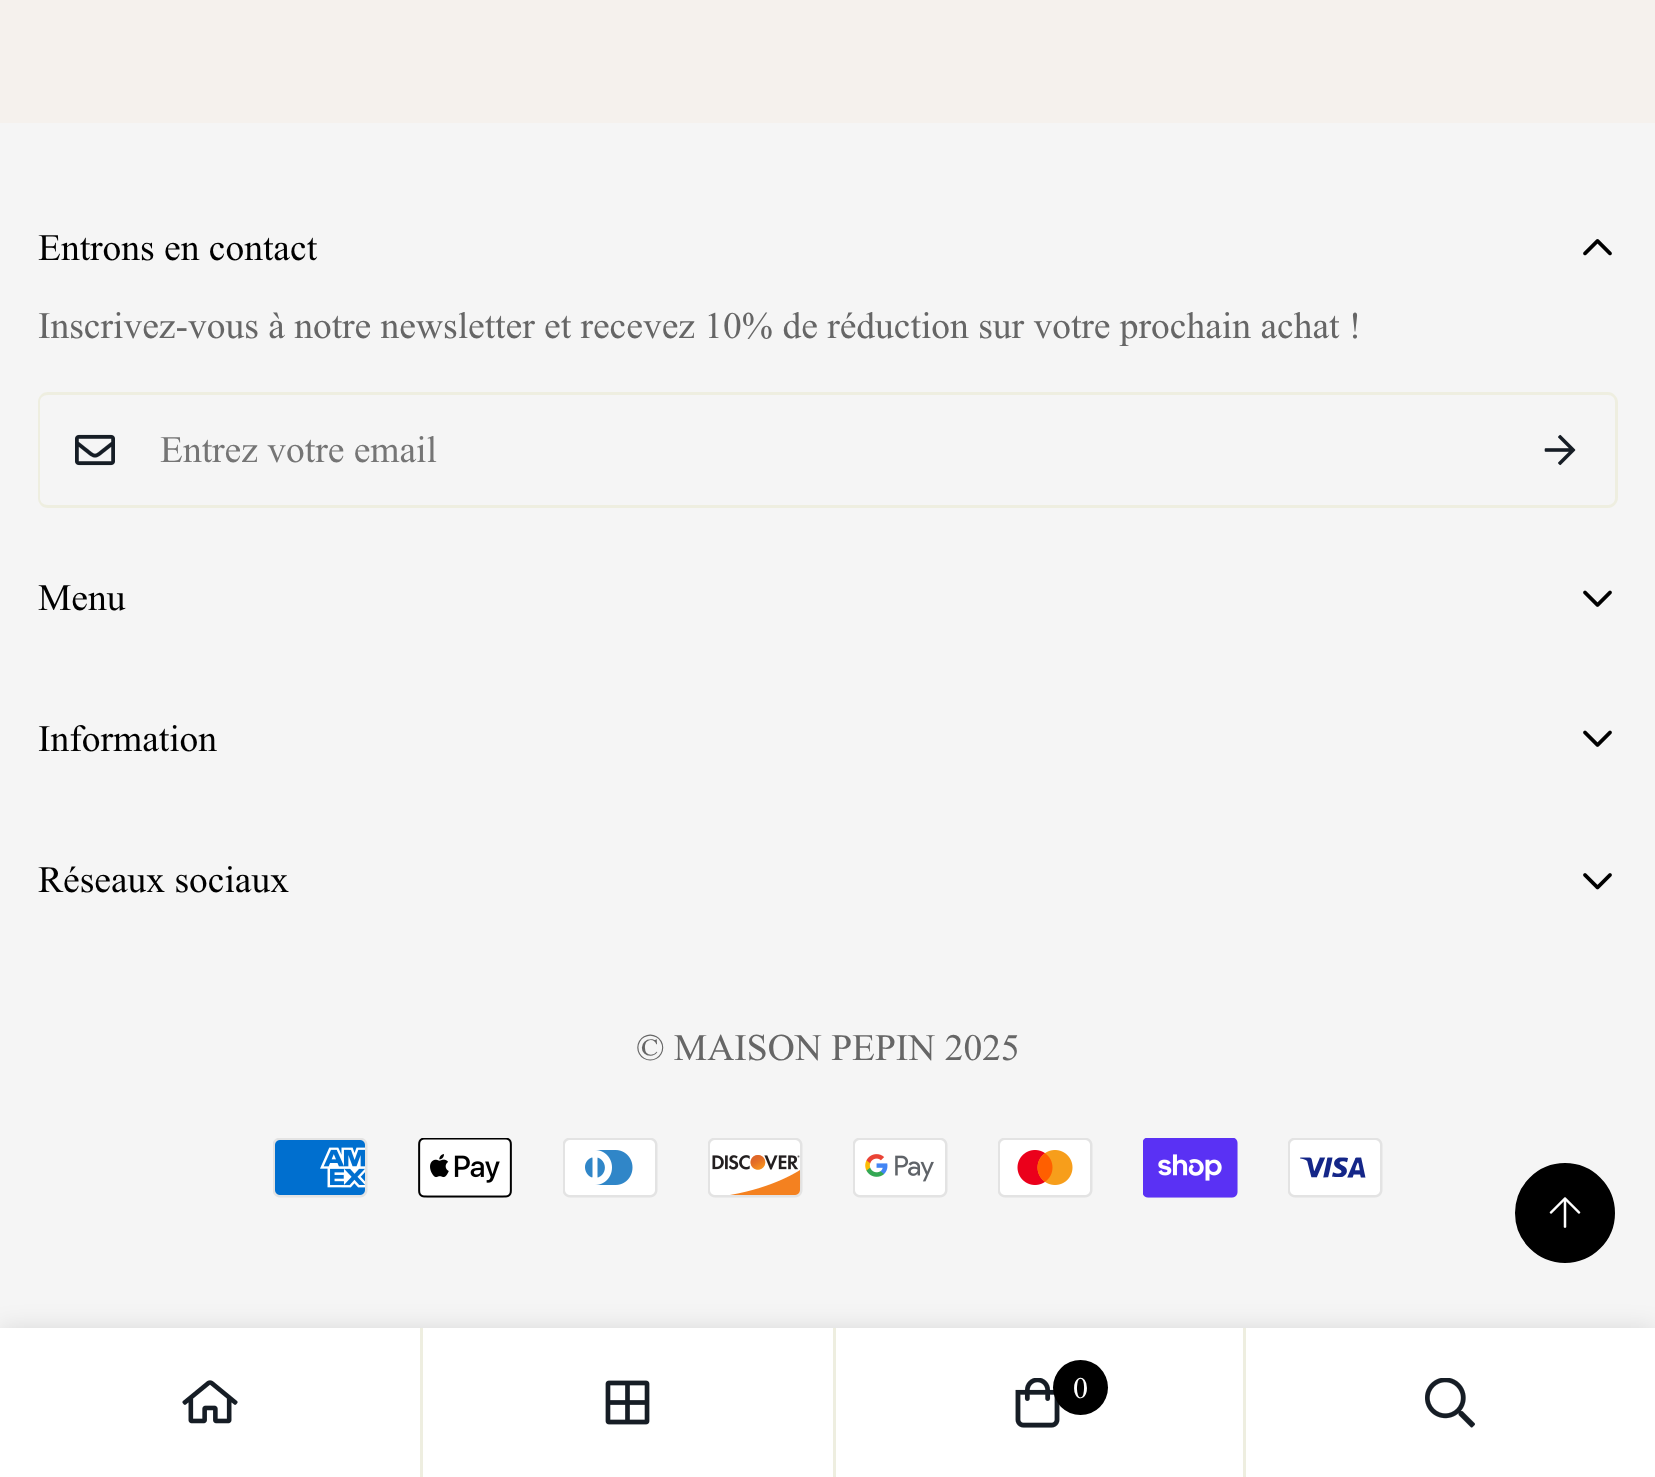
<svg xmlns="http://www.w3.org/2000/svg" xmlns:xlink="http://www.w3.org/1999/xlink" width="1655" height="1477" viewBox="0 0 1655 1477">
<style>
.cls-1{font:37.5px Times New Roman;fill:#000000}
.cls-2{font:37.5px Times New Roman;fill:#666666}
.cls-3{font:37.5px Times New Roman;fill:#757575}
.cls-4{font:30px Times New Roman;fill:#ffffff}
</style>
<rect width="100%" height="100%" fill="#f5f1ed"/>
<rect fill="#f5f5f5" x="0" y="123" width="1655" height="1205"/>
<image xlink:href="image0.png" x="1583" y="239" width="29" height="17"/>
<path fill="#eeeee0" fill-rule="evenodd" d="M48 392H1505V508H48C42 508 38 503 38 498V402C38 397 42 392 48 392ZM48 395H1505V505H48C43 505 40 502 40 498V402C40 398 43 395 48 395Z"/>
<image xlink:href="image1.png" x="75" y="434" width="40" height="32"/>
<path fill="#eeeee0" fill-rule="evenodd" d="M1505 392H1608C1613 392 1618 397 1618 402V498C1618 503 1613 508 1608 508H1505ZM1505 395H1608C1612 395 1615 398 1615 402V498C1615 502 1612 505 1608 505H1505Z"/>
<image xlink:href="image2.png" x="1544" y="434" width="32" height="32"/>
<image xlink:href="image3.png" x="1583" y="590" width="29" height="17"/>
<image xlink:href="image3.png" x="1583" y="730" width="29" height="17"/>
<image xlink:href="image4.png" x="1583" y="873" width="29" height="17"/>
<image xlink:href="image5.png" x="273" y="1138" width="95" height="60"/>
<image xlink:href="image6.png" x="418" y="1138" width="94" height="60"/>
<image xlink:href="image7.png" x="563" y="1138" width="95" height="60"/>
<image xlink:href="image8.png" x="708" y="1138" width="95" height="60"/>
<image xlink:href="image9.png" x="853" y="1138" width="95" height="60"/>
<image xlink:href="image10.png" x="998" y="1138" width="95" height="60"/>
<image xlink:href="image11.png" x="1143" y="1138" width="95" height="60"/>
<image xlink:href="image12.png" x="1288" y="1138" width="95" height="60"/>
<circle fill="#000000" stroke="#000000" stroke-width="3" cx="1565" cy="1213" r="48.5"/>
<image xlink:href="image13.png" x="1549" y="1197" width="32" height="31"/>
<rect fill="#000000" fill-opacity="0.11" filter="blur(12.5px)" x="0" y="1328" width="1655" height="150"/>
<rect fill="#ffffff" x="0" y="1328" width="1655" height="149"/>
<rect fill="#eeeee0" x="420" y="1328" width="3" height="149"/>
<image xlink:href="image14.png" x="182" y="1380" width="56" height="44"/>
<rect fill="#eeeee0" x="833" y="1328" width="3" height="149"/>
<image xlink:href="image15.png" x="605" y="1380" width="45" height="45"/>
<rect fill="#eeeee0" x="1243" y="1328" width="3" height="149"/>
<image xlink:href="image16.png" x="1015" y="1378" width="45" height="50"/>
<circle fill="#000000" cx="1080.5" cy="1387.5" r="27.5"/>
<image xlink:href="image17.png" x="1425" y="1378" width="50" height="50"/>
<text class="cls-1" x="38" y="260">Entrons en contact</text>
<text class="cls-2" x="38" y="338">Inscrivez-vous à notre newsletter et recevez 10% de réduction sur votre prochain achat !</text>
<text class="cls-3" x="160" y="462">Entrez votre email</text>
<text class="cls-1" x="38" y="610">Menu</text>
<text class="cls-1" x="38" y="751">Information</text>
<text class="cls-1" x="38" y="892">Réseaux sociaux</text>
<text class="cls-2" x="636" y="1060">© MAISON PEPIN 2025</text>
<text class="cls-4" x="1073" y="1398">0</text>
</svg>
